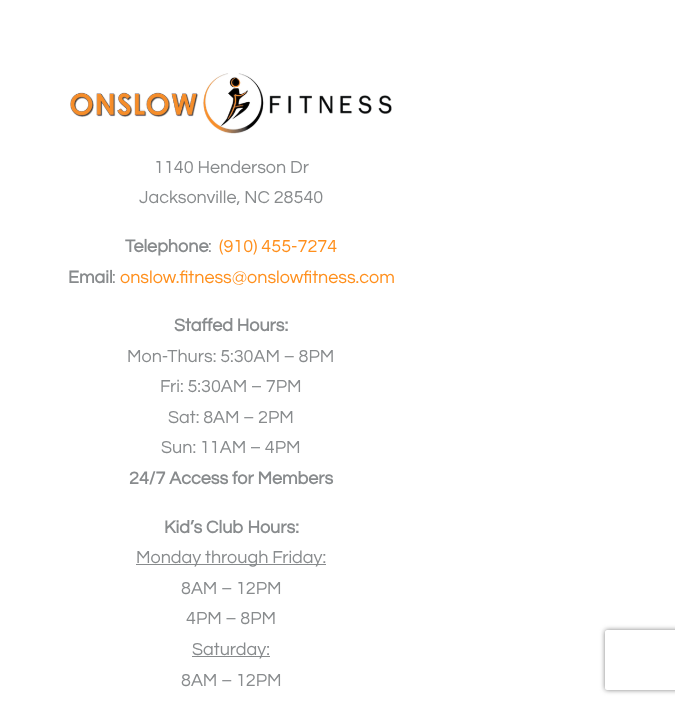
<svg xmlns="http://www.w3.org/2000/svg" xmlns:xlink="http://www.w3.org/1999/xlink" width="675" height="704" viewBox="0 0 675 704">
<style>
.cls-1{font:18px Questrial;fill:#888b8d}
.cls-2{font:bold 18px Questrial;fill:#888b8d}
.cls-3{font:18px Questrial;fill:#ff8f1c}
</style>
<defs>
<clipPath id="clip1"><path d="M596 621H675V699H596ZM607 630H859C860 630 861 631 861 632V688C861 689 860 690 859 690H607C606 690 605 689 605 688V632C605 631 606 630 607 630Z" clip-rule="evenodd"/></clipPath>
</defs>
<rect width="100%" height="100%" fill="#ffffff"/>
<image xlink:href="image0.png" x="70" y="73" width="322" height="61"/>
<rect fill="#888b8d" x="136" y="564" width="190" height="1"/>
<rect fill="#888b8d" x="192" y="656" width="78" height="1"/>
<g clip-path="url(#clip1)">
<rect fill="#808080" filter="blur(2.5px)" x="605" y="630" width="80" height="60" rx="2"/>
</g>
<text class="cls-1" x="154" y="173">1140 Henderson Dr</text>
<text class="cls-1" x="139" y="203">Jacksonville, NC 28540</text>
<text class="cls-2" x="125" y="252">Telephone</text>
<text class="cls-1" x="208" y="252">:</text>
<text class="cls-3" x="219" y="252">(910) 455-7274</text>
<text class="cls-2" x="68" y="283">Email</text>
<text class="cls-1" x="112" y="283">:</text>
<text class="cls-3" x="120" y="283">onslow.fitness@onslowfitness.com</text>
<text class="cls-2" x="174" y="331">Staffed Hours:</text>
<text class="cls-1" x="127" y="362">Mon-Thurs: 5:30AM – 8PM</text>
<text class="cls-1" x="160" y="392">Fri: 5:30AM – 7PM</text>
<text class="cls-1" x="168" y="423">Sat: 8AM – 2PM</text>
<text class="cls-1" x="161" y="453">Sun: 11AM – 4PM</text>
<text class="cls-2" x="129" y="484">24/7 Access for Members</text>
<text class="cls-2" x="164" y="533">Kid’s Club Hours:</text>
<text class="cls-1" x="136" y="563">Monday through Friday:</text>
<text class="cls-1" x="181" y="594">8AM – 12PM</text>
<text class="cls-1" x="186" y="624">4PM – 8PM</text>
<text class="cls-1" x="192" y="655">Saturday:</text>
<text class="cls-1" x="181" y="686">8AM – 12PM</text>
</svg>
